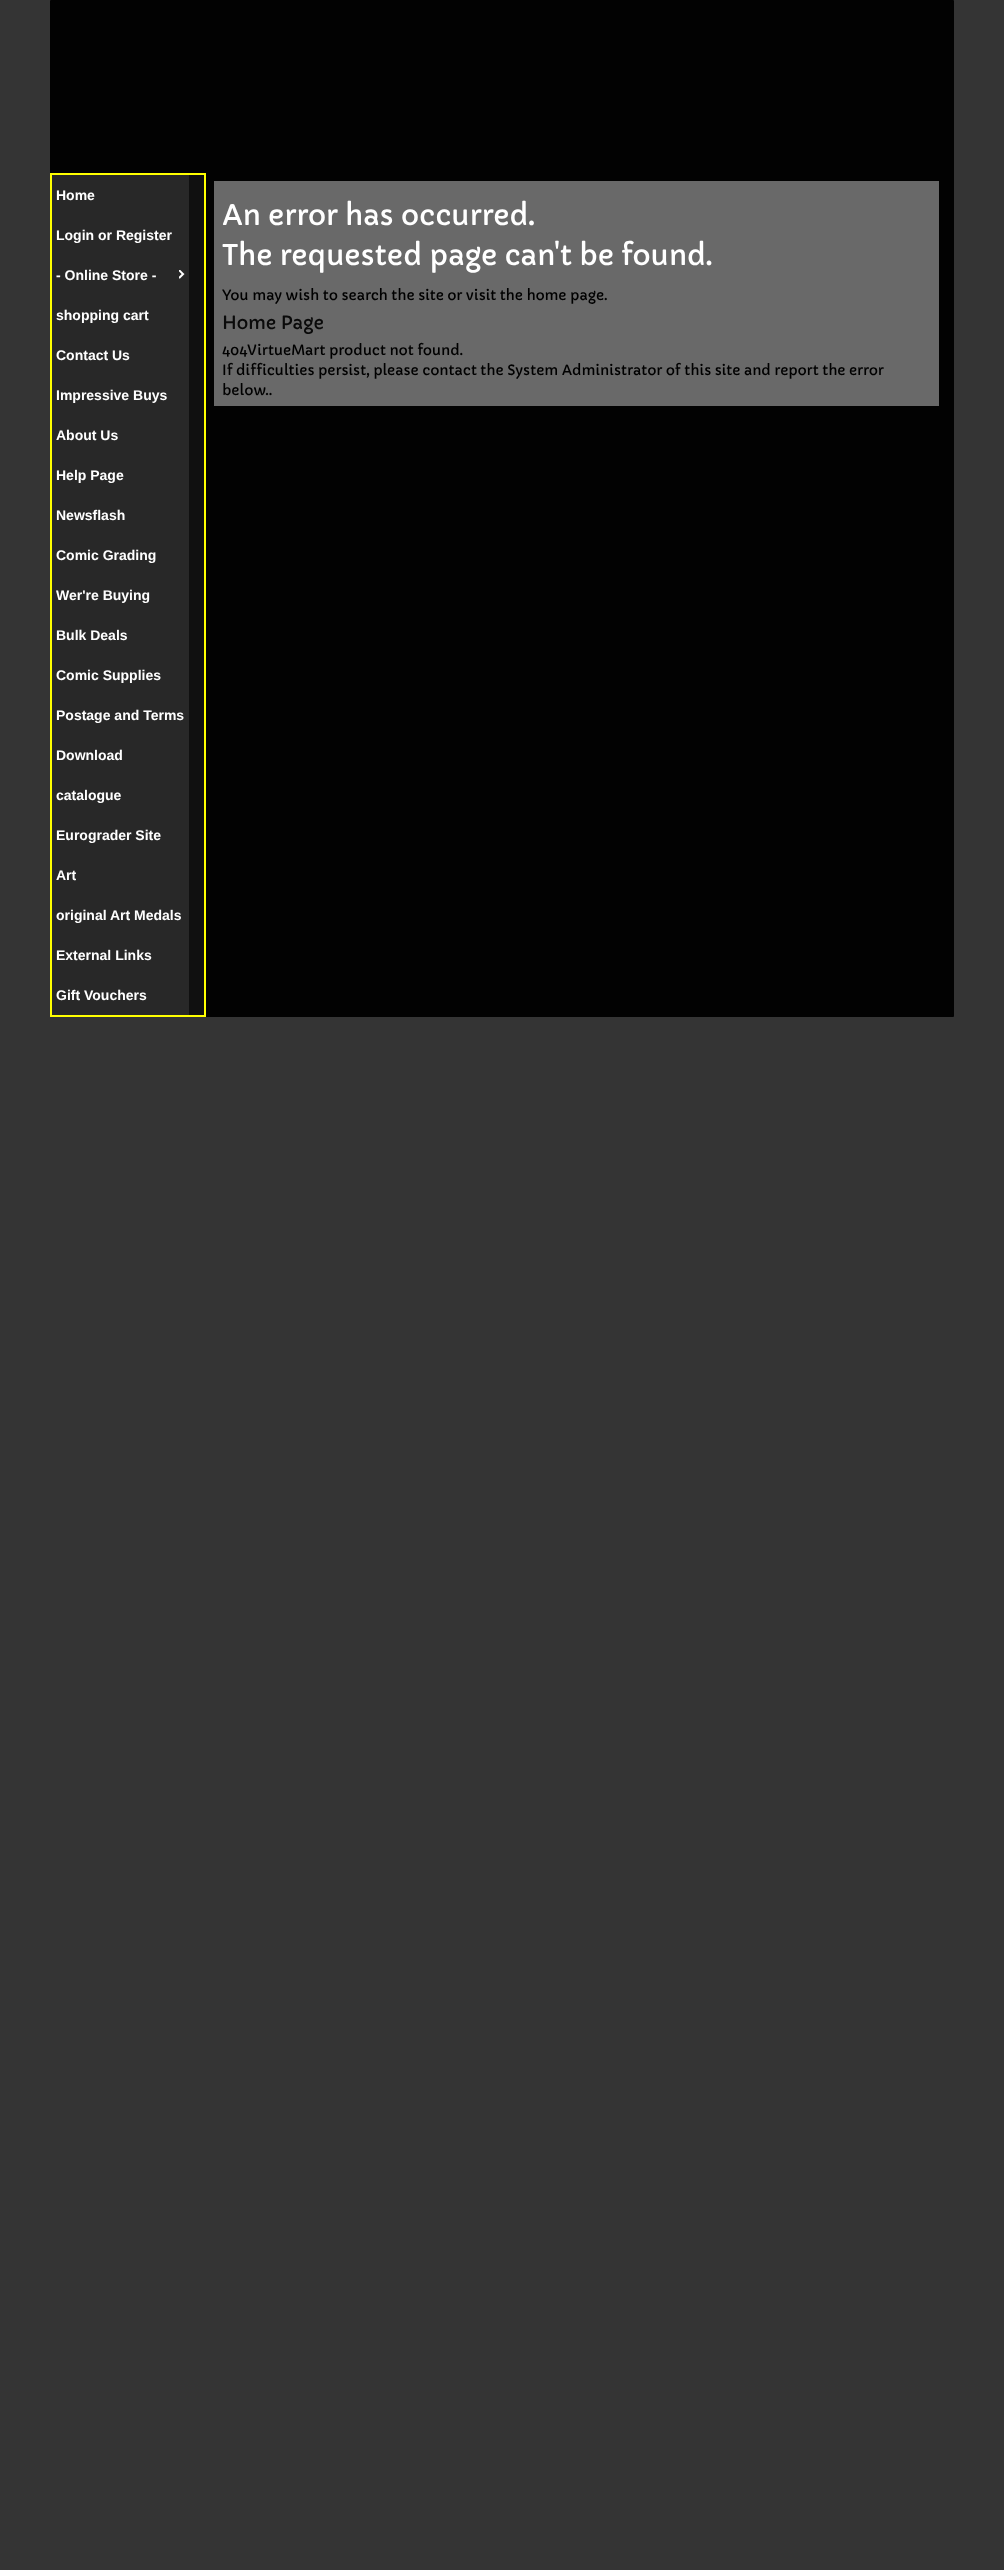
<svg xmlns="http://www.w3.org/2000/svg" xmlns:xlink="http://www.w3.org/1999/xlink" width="1004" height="2570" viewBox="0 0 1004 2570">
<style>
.cls-1{font:bold 14px Liberation Sans;fill:#ffffff}
.cls-2{font:28px Capriola;fill:#ffffff}
.cls-3{font:14px Capriola;fill:#000000}
.cls-4{font:18px Capriola;fill:#0a0a0a}
</style>
<rect width="100%" height="100%" fill="#343434"/>
<rect fill="#020202" x="50" y="0" width="904" height="1017" rx="1"/>
<rect fill="#101010" x="189" y="175" width="15" height="840"/>
<rect fill="none" stroke="#ffff00" stroke-width="2" x="51" y="174" width="154" height="842"/>
<rect fill="#282828" x="52" y="175" width="137" height="840"/>
<image xlink:href="image0.png" x="179" y="270" width="6" height="9"/>
<rect fill="#696969" x="214" y="181" width="725" height="225"/>
<text class="cls-1" x="56" y="200">Home</text>
<text class="cls-1" x="56" y="240">Login or Register</text>
<text class="cls-1" x="56" y="280">- Online Store -</text>
<text class="cls-1" x="56" y="320">shopping cart</text>
<text class="cls-1" x="56" y="360">Contact Us</text>
<text class="cls-1" x="56" y="400">Impressive Buys</text>
<text class="cls-1" x="56" y="440">About Us</text>
<text class="cls-1" x="56" y="480">Help Page</text>
<text class="cls-1" x="56" y="520">Newsflash</text>
<text class="cls-1" x="56" y="560">Comic Grading</text>
<text class="cls-1" x="56" y="600">Wer're Buying</text>
<text class="cls-1" x="56" y="640">Bulk Deals</text>
<text class="cls-1" x="56" y="680">Comic Supplies</text>
<text class="cls-1" x="56" y="720">Postage and Terms</text>
<text class="cls-1" x="56" y="760">Download</text>
<text class="cls-1" x="56" y="800">catalogue</text>
<text class="cls-1" x="56" y="840">Eurograder Site</text>
<text class="cls-1" x="56" y="880">Art</text>
<text class="cls-1" x="56" y="920">original Art Medals</text>
<text class="cls-1" x="56" y="960">External Links</text>
<text class="cls-1" x="56" y="1000">Gift Vouchers</text>
<text class="cls-2"><tspan x="222" y="225">An error has occurred.</tspan><tspan x="222" y="265">The requested page can't be found.</tspan></text>
<text class="cls-3" x="222" y="300">You may wish to search the site or visit the home page.</text>
<text class="cls-4" x="222" y="329">Home Page</text>
<text class="cls-3"><tspan x="222" y="355">404VirtueMart product not found.</tspan><tspan x="222" y="375">If difficulties persist, please contact the System Administrator of this site and report the error</tspan><tspan x="222" y="395">below..</tspan></text>
</svg>
